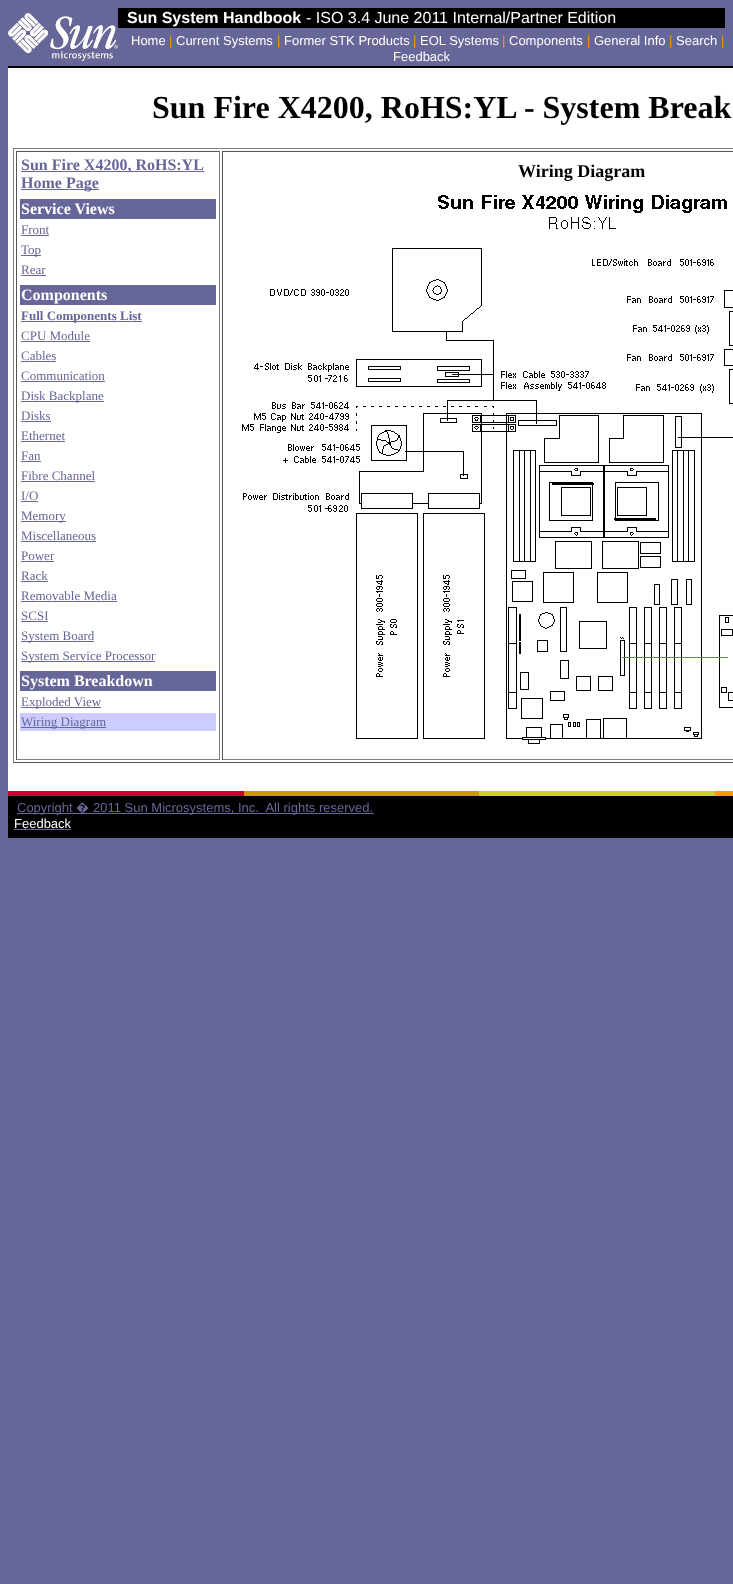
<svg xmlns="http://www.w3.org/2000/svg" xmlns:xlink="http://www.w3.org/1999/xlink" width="733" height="1584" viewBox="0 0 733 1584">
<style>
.cls-1{font:bold 16px Liberation Sans;fill:#ffffff}
.cls-2{font:16px Liberation Sans;fill:#ffffff}
.cls-3{font:13px Liberation Sans;fill:#ffffff}
.cls-4{font:13px Liberation Sans;fill:#ff9900}
.cls-5{font:bold 32px Liberation Serif;fill:#000000}
.cls-6{font:bold 16px Liberation Serif;fill:#666699}
.cls-7{font:bold 16px Liberation Serif;fill:#ffffff}
.cls-8{font:13px Liberation Serif;fill:#666699}
.cls-9{font:bold 13px Liberation Serif;fill:#666699}
.cls-10{font:bold 18px Liberation Serif;fill:#000000}
.cls-11{font:13px Liberation Sans;fill:#666699}
.cls-12{font:13px Noto Sans;fill:#666699}
</style>
<rect width="100%" height="100%" fill="#666699"/>
<image xlink:href="image0.png" x="8" y="8" width="110" height="56"/>
<rect fill="#000000" x="118" y="8" width="607" height="20"/>
<rect fill="#000000" x="8" y="66" width="725" height="2"/>
<rect fill="#ffffff" x="8" y="68" width="725" height="723"/>
<rect fill="#808080" x="13" y="148" width="720" height="1"/>
<rect fill="#555555" x="13" y="762" width="720" height="1"/>
<rect fill="#808080" x="13" y="148" width="1" height="615"/>
<rect fill="#555555" x="16" y="151" width="204" height="1"/>
<rect fill="#808080" x="219" y="151" width="1" height="609"/>
<rect fill="#808080" x="16" y="759" width="204" height="1"/>
<rect fill="#555555" x="16" y="151" width="1" height="609"/>
<rect fill="#666699" x="21" y="171" width="183" height="1"/>
<rect fill="#666699" x="21" y="189" width="78" height="1"/>
<rect fill="#666699" x="20" y="199" width="196" height="20"/>
<rect fill="#666699" x="21" y="235" width="28" height="1"/>
<rect fill="#666699" x="21" y="255" width="20" height="1"/>
<rect fill="#666699" x="21" y="275" width="25" height="1"/>
<rect fill="#666699" x="20" y="285" width="196" height="20"/>
<rect fill="#666699" x="21" y="321" width="121" height="1"/>
<rect fill="#666699" x="21" y="341" width="69" height="1"/>
<rect fill="#666699" x="21" y="361" width="35" height="1"/>
<rect fill="#666699" x="21" y="381" width="84" height="1"/>
<rect fill="#666699" x="21" y="401" width="83" height="1"/>
<rect fill="#666699" x="21" y="421" width="30" height="1"/>
<rect fill="#666699" x="21" y="441" width="44" height="1"/>
<rect fill="#666699" x="21" y="461" width="20" height="1"/>
<rect fill="#666699" x="21" y="481" width="74" height="1"/>
<rect fill="#666699" x="21" y="501" width="17" height="1"/>
<rect fill="#666699" x="21" y="521" width="45" height="1"/>
<rect fill="#666699" x="21" y="541" width="75" height="1"/>
<rect fill="#666699" x="21" y="561" width="33" height="1"/>
<rect fill="#666699" x="21" y="581" width="27" height="1"/>
<rect fill="#666699" x="21" y="601" width="96" height="1"/>
<rect fill="#666699" x="21" y="621" width="27" height="1"/>
<rect fill="#666699" x="21" y="641" width="73" height="1"/>
<rect fill="#666699" x="21" y="661" width="134" height="1"/>
<rect fill="#666699" x="20" y="671" width="196" height="20"/>
<rect fill="#666699" x="21" y="707" width="80" height="1"/>
<rect fill="#ccccff" x="20" y="713" width="196" height="18"/>
<rect fill="#666699" x="21" y="727" width="85" height="1"/>
<rect fill="#555555" x="222" y="151" width="511" height="1"/>
<rect fill="#808080" x="222" y="759" width="511" height="1"/>
<rect fill="#555555" x="222" y="151" width="1" height="609"/>
<image xlink:href="image1.png" x="242" y="195" width="491" height="549"/>
<rect fill="#cc0033" x="8" y="791" width="236" height="5"/>
<rect fill="#cc9900" x="244" y="791" width="235" height="5"/>
<rect fill="#cccc33" x="479" y="791" width="236" height="5"/>
<rect fill="#ff9900" x="715" y="791" width="18" height="5"/>
<rect fill="#000000" x="8" y="796" width="725" height="42"/>
<rect fill="#666699" x="17" y="813" width="357" height="1"/>
<rect fill="#666699" x="14" y="829" width="57" height="1"/>
<text class="cls-1" x="127" y="23">Sun System Handbook</text>
<text class="cls-2" x="306" y="23">- ISO 3.4 June 2011 Internal/Partner Edition</text>
<text class="cls-3" x="131" y="45">Home</text>
<text class="cls-4" x="169" y="45">|</text>
<text class="cls-3" x="176" y="45">Current Systems</text>
<text class="cls-4" x="277" y="45">|</text>
<text class="cls-3" x="284" y="45">Former STK Products</text>
<text class="cls-4" x="413" y="45">|</text>
<text class="cls-3" x="420" y="45">EOL Systems</text>
<text class="cls-4" x="502" y="45">|</text>
<text class="cls-3" x="509" y="45">Components</text>
<text class="cls-4" x="587" y="45">|</text>
<text class="cls-3" x="594" y="45">General Info</text>
<text class="cls-4" x="669" y="45">|</text>
<text class="cls-3" x="676" y="45">Search</text>
<text class="cls-4" x="721" y="45">|</text>
<text class="cls-3" x="393" y="61">Feedback</text>
<text class="cls-5" x="152" y="118">Sun Fire X4200, RoHS:YL - System Break</text>
<text class="cls-6"><tspan x="21" y="170">Sun Fire X4200, RoHS:YL</tspan><tspan x="21" y="188">Home Page</tspan></text>
<text class="cls-7" x="21" y="214">Service Views</text>
<text class="cls-8"><tspan x="21" y="234">Front</tspan><tspan x="21" y="254">Top</tspan><tspan x="21" y="274">Rear</tspan></text>
<text class="cls-7" x="21" y="300">Components</text>
<text class="cls-9" x="21" y="320">Full Components List</text>
<text class="cls-8"><tspan x="21" y="340">CPU Module</tspan><tspan x="21" y="360">Cables</tspan><tspan x="21" y="380">Communication</tspan><tspan x="21" y="400">Disk Backplane</tspan><tspan x="21" y="420">Disks</tspan><tspan x="21" y="440">Ethernet</tspan><tspan x="21" y="460">Fan</tspan><tspan x="21" y="480">Fibre Channel</tspan><tspan x="21" y="500">I/O</tspan><tspan x="21" y="520">Memory</tspan><tspan x="21" y="540">Miscellaneous</tspan><tspan x="21" y="560">Power</tspan><tspan x="21" y="580">Rack</tspan><tspan x="21" y="600">Removable Media</tspan><tspan x="21" y="620">SCSI</tspan><tspan x="21" y="640">System Board</tspan><tspan x="21" y="660">System Service Processor</tspan></text>
<text class="cls-7" x="21" y="686">System Breakdown</text>
<text class="cls-8"><tspan x="21" y="706">Exploded View</tspan><tspan x="21" y="726">Wiring Diagram</tspan></text>
<text class="cls-10" x="518" y="177">Wiring Diagram</text>
<text class="cls-11" x="17" y="812">Copyright</text>
<text class="cls-12" x="76" y="812">�</text>
<text class="cls-11" xml:space="preserve" x="93" y="812">2011 Sun Microsystems, Inc.  All rights reserved.</text>
<text class="cls-3" x="14" y="828">Feedback</text>
</svg>
